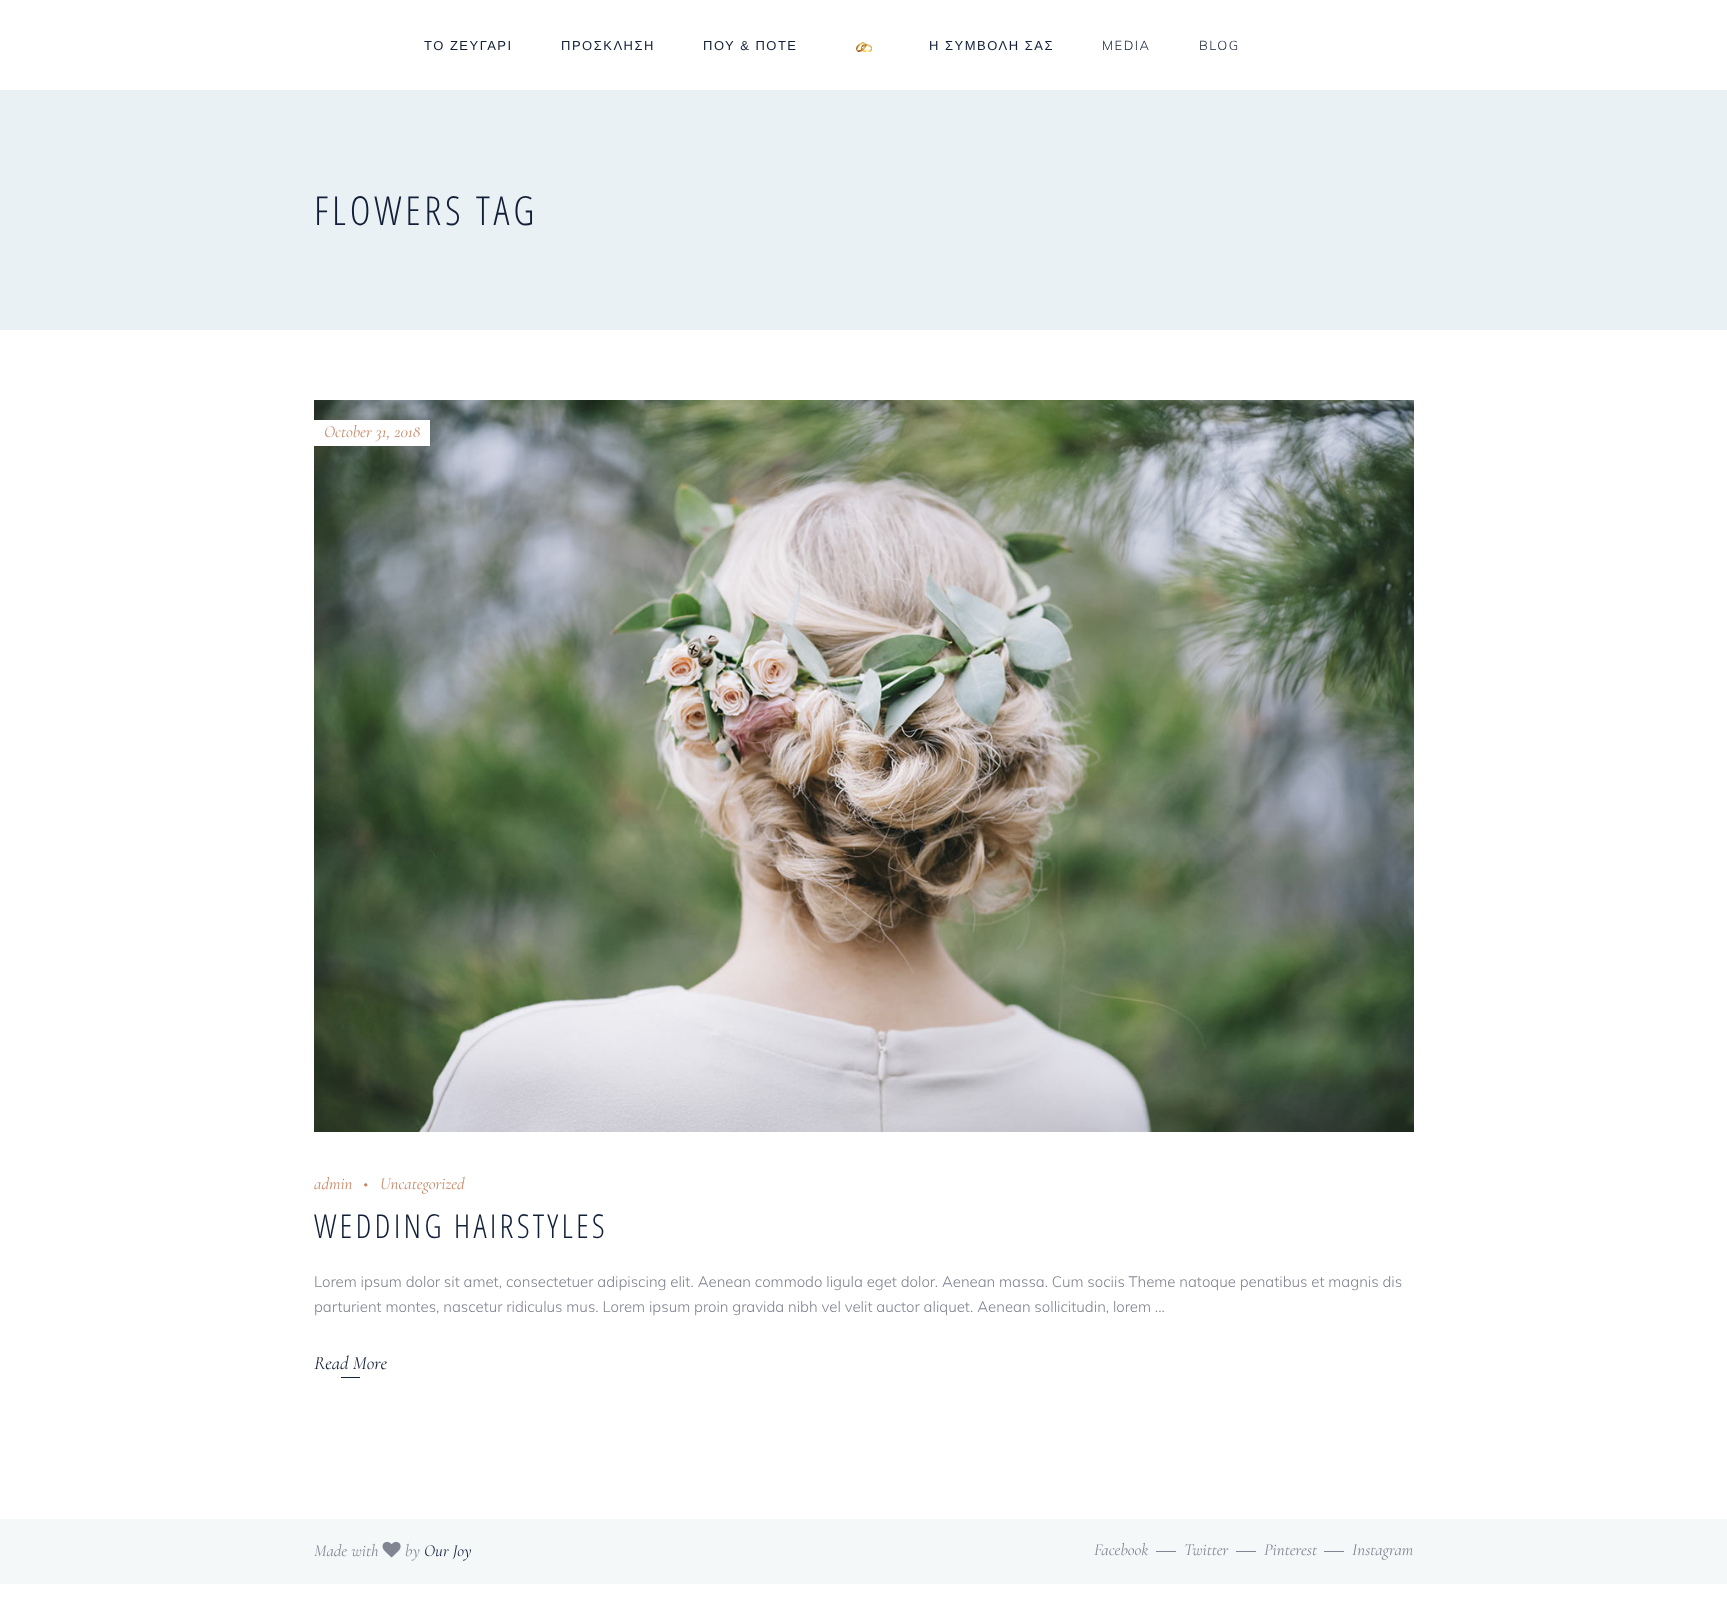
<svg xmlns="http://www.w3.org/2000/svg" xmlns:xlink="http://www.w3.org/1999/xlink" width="1727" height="1600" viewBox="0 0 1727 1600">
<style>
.cls-1{font:13px Liberation Sans;letter-spacing:1.5px;fill:#121f38}
.cls-2{font:300 13px Muli;letter-spacing:1.5px;fill:#121f38}
.cls-3{font:300 40px Open Sans Condensed;letter-spacing:3.75px;fill:#121f38}
.cls-4{font:italic 300 17px Cormorant;fill:#c78665}
.cls-5{font:300 33px Open Sans Condensed;letter-spacing:3.1px;fill:#121f38}
.cls-6{font:300 15px Muli;fill:#818491}
.cls-7{font:italic 300 19px Cormorant;fill:#121f38}
.cls-8{font:italic 300 17px Cormorant;fill:#818491}
.cls-9{font:italic 300 17px Cormorant;fill:#121f38}
</style>
<rect width="100%" height="100%" fill="#ffffff"/>
<image xlink:href="image0.png" x="856" y="42" width="16" height="11"/>
<rect fill="#eaf1f4" x="0" y="90" width="1727" height="240"/>
<image xlink:href="image1.png" x="314" y="400" width="1100" height="732"/>
<rect fill="#ffffff" x="314" y="420" width="116" height="26"/>
<rect fill="#121f38" x="341" y="1377" width="19" height="1"/>
<rect fill="#f4f8f9" x="0" y="1519" width="1727" height="65"/>
<image xlink:href="image2.png" x="382" y="1541" width="19" height="17"/>
<rect fill="#818491" x="1156" y="1551" width="20" height="1"/>
<rect fill="#818491" x="1236" y="1551" width="20" height="1"/>
<rect fill="#818491" x="1324" y="1551" width="20" height="1"/>
<text class="cls-1" x="424" y="50">ΤΟ ΖΕΥΓΑΡΙ</text>
<text class="cls-1" x="561" y="50">ΠΡΟΣΚΛΗΣΗ</text>
<text class="cls-1" x="703" y="50">ΠΟΥ &amp; ΠΟΤΕ</text>
<text class="cls-1" x="929" y="50">Η ΣΥΜΒΟΛΗ ΣΑΣ</text>
<text class="cls-2" x="1102" y="50">MEDIA</text>
<text class="cls-2" x="1199" y="50">BLOG</text>
<text class="cls-3" x="314" y="225">FLOWERS TAG</text>
<text class="cls-4" x="324" y="437">October 31, 2018</text>
<text class="cls-4" x="314" y="1189">admin</text>
<text class="cls-4" x="363" y="1189">•</text>
<text class="cls-4" x="380" y="1189">Uncategorized</text>
<text class="cls-5" x="314" y="1238">WEDDING HAIRSTYLES</text>
<text class="cls-6"><tspan x="314" y="1287">Lorem ipsum dolor sit amet, consectetuer adipiscing elit. Aenean commodo ligula eget dolor. Aenean massa. Cum sociis Theme natoque penatibus et magnis dis</tspan><tspan x="314" y="1312">parturient montes, nascetur ridiculus mus. Lorem ipsum proin gravida nibh vel velit auctor aliquet. Aenean sollicitudin, lorem ...</tspan></text>
<text class="cls-7" x="314" y="1369">Read More</text>
<text class="cls-8" x="314" y="1556">Made with</text>
<text class="cls-8" x="405" y="1556">by</text>
<text class="cls-9" x="424" y="1556">Our Joy</text>
<text class="cls-8" x="1094" y="1555">Facebook</text>
<text class="cls-8" x="1184" y="1555">Twitter</text>
<text class="cls-8" x="1264" y="1555">Pinterest</text>
<text class="cls-8" x="1352" y="1555">Instagram</text>
</svg>
